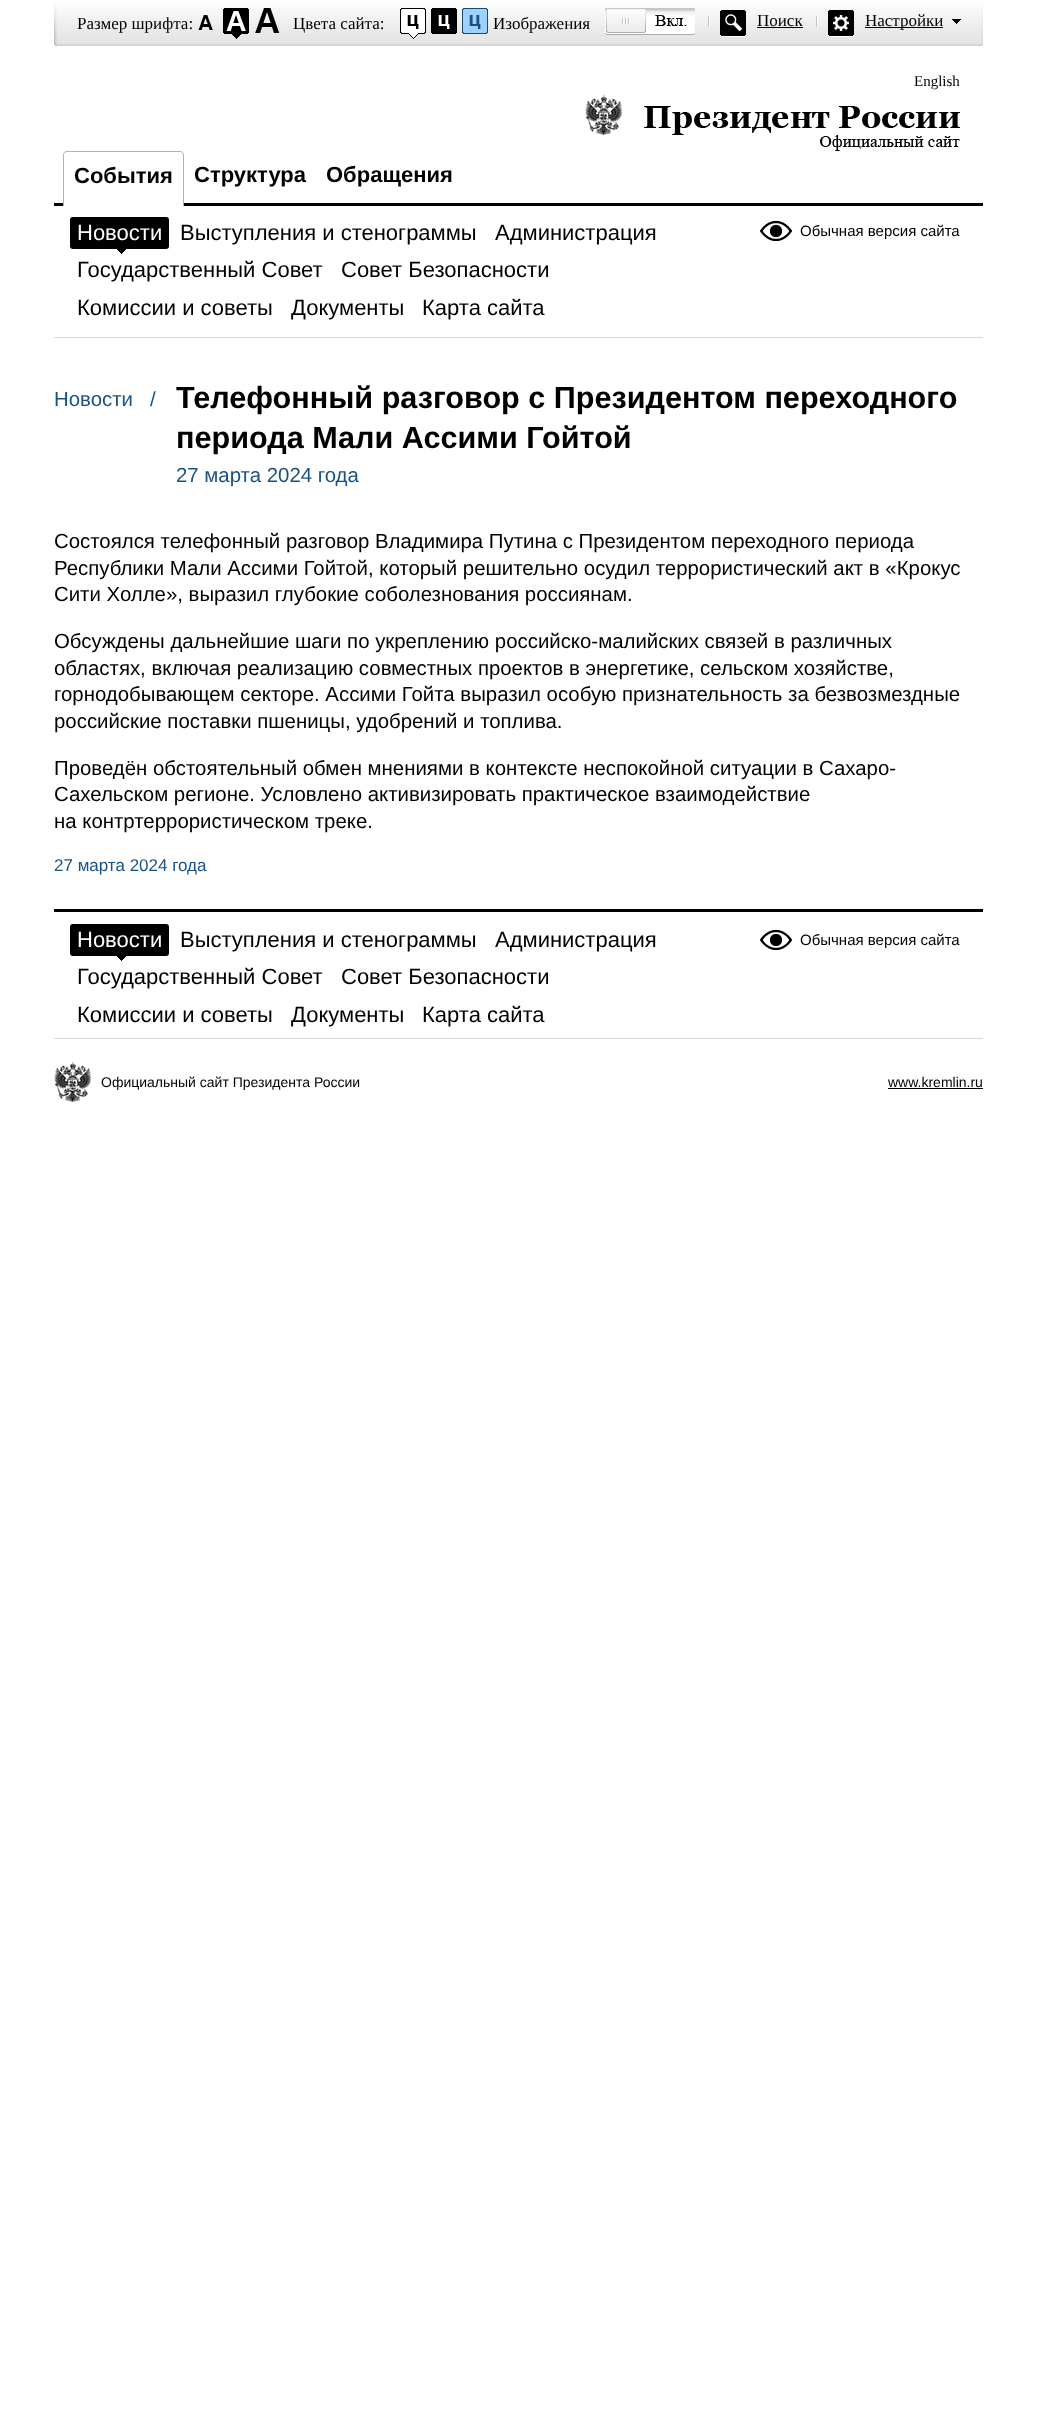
<svg xmlns="http://www.w3.org/2000/svg" xmlns:xlink="http://www.w3.org/1999/xlink" width="1037" height="2436" viewBox="0 0 1037 2436">
<style>
.cls-1{font:17px Liberation Serif;fill:#000000}
.cls-2{font:15px Liberation Serif;fill:#000000}
.cls-3{font:bold 22px Liberation Sans;fill:#000000}
.cls-4{font:22px Liberation Sans;fill:#ffffff}
.cls-5{font:22px Liberation Sans;fill:#000000}
.cls-6{font:15px Liberation Sans;fill:#000000}
.cls-7{font:20.4px Liberation Sans;fill:#195183}
.cls-8{font:bold 30.6px Liberation Sans;fill:#000000}
.cls-9{font:20.4px Liberation Sans;fill:#000000}
.cls-10{font:17px Liberation Sans;fill:#195183}
.cls-11{font:14px Liberation Sans;fill:#000000}
</style>
<rect width="100%" height="100%" fill="#ffffff"/>
<image xlink:href="image0.png" x="54" y="1" width="929" height="45"/>
<image xlink:href="image1.png" x="198" y="15" width="15" height="15"/>
<image xlink:href="image2.png" x="223" y="8" width="26" height="31"/>
<image xlink:href="image3.png" x="255" y="8" width="25" height="25"/>
<image xlink:href="image4.png" x="400" y="8" width="26" height="31"/>
<image xlink:href="image5.png" x="431" y="8" width="26" height="26"/>
<image xlink:href="image6.png" x="462" y="8" width="26" height="26"/>
<image xlink:href="image7.png" x="605" y="8" width="90" height="27"/>
<image xlink:href="image8.png" x="708" y="10" width="38" height="27"/>
<rect fill="#000000" x="757" y="27" width="46" height="1"/>
<image xlink:href="image9.png" x="816" y="10" width="38" height="27"/>
<rect fill="#000000" x="865" y="27" width="78" height="1"/>
<image xlink:href="image10.png" x="952" y="19" width="9" height="5"/>
<image xlink:href="image11.png" x="585" y="95" width="375" height="56"/>
<rect fill="#d8d8d8" x="54" y="337" width="929" height="1"/>
<rect fill="#000000" x="54" y="203" width="929" height="3"/>
<path fill="#ffffff" d="M67 151H180C182 151 184 153 184 155V206H63V155C63 153 65 151 67 151Z"/>
<path fill="#b0b0b0" fill-rule="evenodd" d="M67 151H180C182 151 184 153 184 155V206H63V155C63 153 65 151 67 151ZM67 152H180C182 152 183 153 183 155V206H64V155C64 153 65 152 67 152Z"/>
<image xlink:href="image12.png" x="117" y="249" width="9" height="5"/>
<rect fill="#000000" x="70" y="217" width="99" height="32" rx="3"/>
<image xlink:href="image13.png" x="760" y="220" width="32" height="21"/>
<rect fill="#000000" x="54" y="909" width="929" height="3"/>
<image xlink:href="image12.png" x="117" y="956" width="9" height="5"/>
<rect fill="#000000" x="70" y="924" width="99" height="32" rx="3"/>
<image xlink:href="image13.png" x="760" y="929" width="32" height="21"/>
<rect fill="#d8d8d8" x="54" y="1038" width="929" height="1"/>
<image xlink:href="image14.png" x="54" y="1062" width="38" height="41"/>
<rect fill="#000000" x="888" y="1088" width="95" height="1"/>
<text class="cls-1" x="77" y="29">Размер шрифта:</text>
<text class="cls-1" x="293" y="29">Цвета сайта:</text>
<text class="cls-1" x="493" y="29">Изображения</text>
<text class="cls-1" x="757" y="26">Поиск</text>
<text class="cls-1" x="865" y="26">Настройки</text>
<text class="cls-2" x="914" y="86">English</text>
<text class="cls-3" x="74" y="183">События</text>
<text class="cls-3" x="194" y="182">Структура</text>
<text class="cls-3" x="326" y="182">Обращения</text>
<text class="cls-4" x="77" y="240">Новости</text>
<text class="cls-5" x="180" y="240">Выступления и стенограммы</text>
<text class="cls-5" x="495" y="240">Администрация</text>
<text class="cls-5" x="77" y="277">Государственный Совет</text>
<text class="cls-5" x="341" y="277">Совет Безопасности</text>
<text class="cls-5" x="77" y="315">Комиссии и советы</text>
<text class="cls-5" x="291" y="315">Документы</text>
<text class="cls-5" x="422" y="315">Карта сайта</text>
<text class="cls-6" x="800" y="236">Обычная версия сайта</text>
<text class="cls-7" x="54" y="406">Новости</text>
<text class="cls-7" x="150" y="406">/</text>
<text class="cls-8"><tspan x="176" y="408">Телефонный разговор с Президентом переходного</tspan><tspan x="176" y="448">периода Мали Ассими Гойтой</tspan></text>
<text class="cls-7" x="176" y="482">27 марта 2024 года</text>
<text class="cls-9"><tspan x="54" y="548">Состоялся телефонный разговор Владимира Путина с Президентом переходного периода</tspan><tspan x="54" y="575">Республики Мали Ассими Гойтой, который решительно осудил террористический акт в «Крокус</tspan><tspan x="54" y="601">Сити Холле», выразил глубокие соболезнования россиянам.</tspan></text>
<text class="cls-9"><tspan x="54" y="648">Обсуждены дальнейшие шаги по укреплению российско-малийских связей в различных</tspan><tspan x="54" y="675">областях, включая реализацию совместных проектов в энергетике, сельском хозяйстве,</tspan><tspan x="54" y="701">горнодобывающем секторе. Ассими Гойта выразил особую признательность за безвозмездные</tspan><tspan x="54" y="728">российские поставки пшеницы, удобрений и топлива.</tspan></text>
<text class="cls-9"><tspan x="54" y="775">Проведён обстоятельный обмен мнениями в контексте неспокойной ситуации в Сахаро-</tspan><tspan x="54" y="801">Сахельском регионе. Условлено активизировать практическое взаимодействие</tspan><tspan x="54" y="828">на контртеррористическом треке.</tspan></text>
<text class="cls-10" x="54" y="871">27 марта 2024 года</text>
<text class="cls-4" x="77" y="947">Новости</text>
<text class="cls-5" x="180" y="947">Выступления и стенограммы</text>
<text class="cls-5" x="495" y="947">Администрация</text>
<text class="cls-5" x="77" y="984">Государственный Совет</text>
<text class="cls-5" x="341" y="984">Совет Безопасности</text>
<text class="cls-5" x="77" y="1022">Комиссии и советы</text>
<text class="cls-5" x="291" y="1022">Документы</text>
<text class="cls-5" x="422" y="1022">Карта сайта</text>
<text class="cls-6" x="800" y="945">Обычная версия сайта</text>
<text class="cls-11" x="101" y="1087">Официальный сайт Президента России</text>
<text class="cls-11" x="888" y="1087">www.kremlin.ru</text>
</svg>
